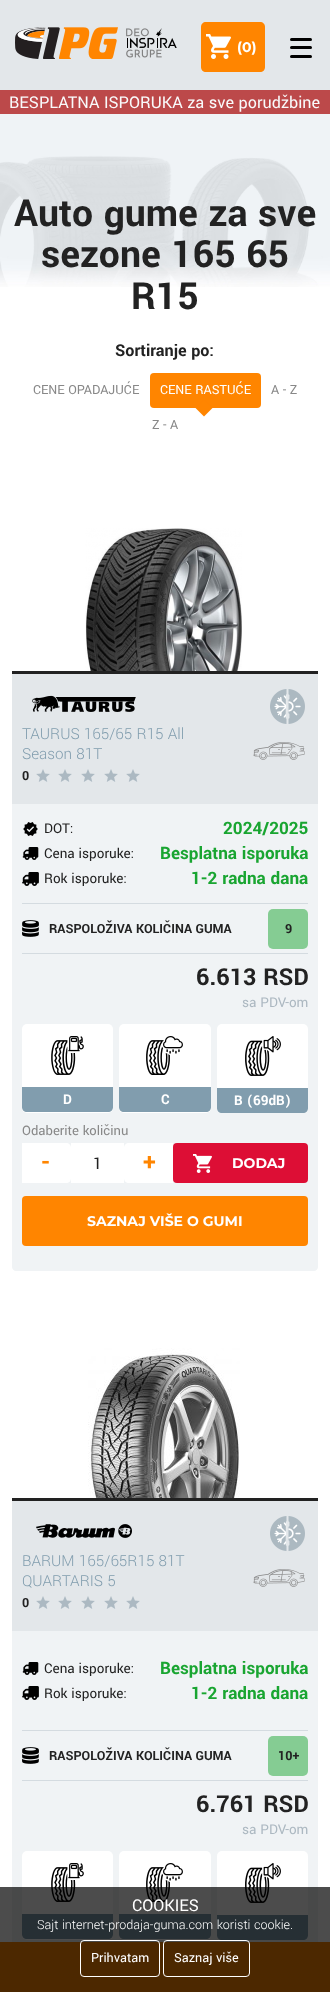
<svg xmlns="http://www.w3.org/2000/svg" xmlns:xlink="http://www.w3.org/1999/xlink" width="330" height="1992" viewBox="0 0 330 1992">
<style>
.cls-1{font:bold 14px Montserrat;fill:#ffffff}
.cls-2{font:18px Yantramanav;fill:#f9fafb}
.cls-3{font:bold 41.5px Yantramanav;fill:#222222}
.cls-4{font:bold 18px Yantramanav;fill:#222222}
.cls-5{font:14px Yantramanav;fill:#888888}
.cls-6{font:14px Yantramanav;fill:#ffffff}
.cls-7{font:300 17px Yantramanav;fill:#819dae}
.cls-8{font:bold 14px Yantramanav;fill:#222222}
.cls-9{font:15px Yantramanav;fill:#222222}
.cls-10{font:bold 19px Yantramanav;fill:#19a531}
.cls-11{font:bold 26px Yantramanav;fill:#222222}
.cls-12{font:15px Yantramanav;fill:#acb8c1}
.cls-13{font:bold 15px Yantramanav;fill:#ffffff}
.cls-14{font:14.5px Yantramanav;fill:#888888}
.cls-15{font:bold 26px Yantramanav;fill:#ff8500}
.cls-16{font:18px Yantramanav;fill:#222222}
.cls-17{font:18px Yantramanav;fill:#ffffff}
.cls-18{font:300 14px Yantramanav;fill:#ffffff}
</style>
<rect width="100%" height="100%" fill="#e3e7ea"/>
<image xlink:href="image0.png" x="15" y="27" width="103" height="32"/>
<image xlink:href="image1.png" x="126" y="28" width="51" height="30"/>
<path fill="#ff8500" d="M206 22H242V72H206C203 72 201 70 201 67V27C201 24 203 22 206 22Z"/>
<image xlink:href="image2.png" x="206" y="34" width="25" height="25"/>
<rect fill="#ff8500" x="242" y="22" width="10" height="50"/>
<path fill="#ff8500" d="M252 22H260C263 22 265 24 265 27V67C265 70 263 72 260 72H252Z"/>
<rect fill="#000000" x="290" y="38" width="22" height="3" rx="1.5"/>
<rect fill="#000000" x="290" y="46" width="22" height="3" rx="1.5"/>
<rect fill="#000000" x="290" y="55" width="22" height="3" rx="1.5"/>
<rect fill="#bc494a" x="0" y="90" width="330" height="24"/>
<rect fill="#ffffff" x="0" y="287" width="330" height="1655"/>
<image xlink:href="image3.png" x="0" y="114" width="330" height="173"/>
<rect fill="#ff8500" x="150" y="373" width="111" height="35" rx="4"/>
<path fill="#ff8500" d="M204 399.5L212.5 408L204 416.5L195.5 408Z"/>
<image xlink:href="image4.png" x="85" y="528" width="157" height="143"/>
<rect fill="#222222" x="12" y="671" width="306" height="3"/>
<rect fill="#e3e7ea" x="12" y="674" width="306" height="130"/>
<image xlink:href="image5.png" x="32" y="695" width="104" height="17"/>
<image xlink:href="image6.png" x="270" y="689" width="35" height="35"/>
<image xlink:href="image7.png" x="253" y="742" width="52" height="18"/>
<image xlink:href="image8.png" x="36" y="769" width="14" height="13"/>
<image xlink:href="image8.png" x="58" y="769" width="14" height="13"/>
<image xlink:href="image8.png" x="81" y="769" width="14" height="13"/>
<image xlink:href="image8.png" x="104" y="769" width="14" height="13"/>
<image xlink:href="image8.png" x="126" y="769" width="14" height="13"/>
<path fill="#f0f3f5" d="M12 804H318V1267C318 1269 316 1271 314 1271H16C14 1271 12 1269 12 1267Z"/>
<rect fill="#d4dbe0" x="22" y="903" width="286" height="1"/>
<image xlink:href="image9.png" x="23" y="822" width="15" height="14"/>
<image xlink:href="image10.png" x="22" y="847" width="17" height="13"/>
<image xlink:href="image11.png" x="22" y="872" width="17" height="14"/>
<rect fill="#d4dbe0" x="22" y="953" width="286" height="1"/>
<image xlink:href="image12.png" x="22" y="920" width="17" height="17"/>
<rect fill="#85cc93" x="268" y="909" width="40" height="40" rx="5"/>
<rect fill="#ffffff" x="22" y="1024" width="91" height="89" rx="5"/>
<image xlink:href="image13.png" x="51" y="1036" width="33" height="39"/>
<path fill="#819dae" d="M22 1087H113V1107C113 1110 111 1112 108 1112H27C24 1112 22 1110 22 1107Z"/>
<rect fill="#ffffff" x="119" y="1024" width="92" height="89" rx="5"/>
<image xlink:href="image14.png" x="146" y="1036" width="37" height="39"/>
<path fill="#819dae" d="M119 1087H211V1107C211 1110 209 1112 206 1112H124C121 1112 119 1110 119 1107Z"/>
<rect fill="#ffffff" x="217" y="1024" width="91" height="89" rx="5"/>
<image xlink:href="image15.png" x="245" y="1036" width="36" height="40"/>
<path fill="#819dae" d="M217 1088H308V1108C308 1111 306 1113 303 1113H222C219 1113 217 1111 217 1108Z"/>
<path fill="#ffffff" d="M22 1143H66C69 1143 71 1145 71 1148V1178C71 1181 69 1183 66 1183H22Z"/>
<rect fill="#ffffff" x="71" y="1143" width="53" height="40"/>
<path fill="#ffffff" d="M129 1143H173V1183H129C126 1183 124 1181 124 1178V1148C124 1145 126 1143 129 1143Z"/>
<rect fill="#dd0e35" x="173" y="1143" width="135" height="40" rx="4"/>
<image xlink:href="image16.png" x="193" y="1154" width="19" height="19"/>
<rect fill="#ff8500" x="22" y="1196" width="286" height="50" rx="4"/>
<image xlink:href="image17.png" x="88" y="1348" width="152" height="150"/>
<rect fill="#222222" x="12" y="1498" width="306" height="3"/>
<rect fill="#e3e7ea" x="12" y="1501" width="306" height="130"/>
<image xlink:href="image18.png" x="36" y="1524" width="96" height="14"/>
<image xlink:href="image6.png" x="270" y="1516" width="35" height="35"/>
<image xlink:href="image7.png" x="253" y="1569" width="52" height="18"/>
<image xlink:href="image8.png" x="36" y="1596" width="14" height="13"/>
<image xlink:href="image8.png" x="58" y="1596" width="14" height="13"/>
<image xlink:href="image8.png" x="81" y="1596" width="14" height="13"/>
<image xlink:href="image8.png" x="104" y="1596" width="14" height="13"/>
<image xlink:href="image8.png" x="126" y="1596" width="14" height="13"/>
<rect fill="#f0f3f5" x="12" y="1631" width="306" height="311"/>
<rect fill="#d4dbe0" x="22" y="1730" width="286" height="1"/>
<image xlink:href="image10.png" x="22" y="1662" width="17" height="13"/>
<image xlink:href="image11.png" x="22" y="1686" width="17" height="14"/>
<rect fill="#d4dbe0" x="22" y="1780" width="286" height="1"/>
<image xlink:href="image12.png" x="22" y="1747" width="17" height="17"/>
<rect fill="#85cc93" x="268" y="1736" width="40" height="40" rx="5"/>
<rect fill="#ffffff" x="22" y="1851" width="91" height="89" rx="5"/>
<image xlink:href="image13.png" x="51" y="1863" width="33" height="39"/>
<path fill="#819dae" d="M22 1914H113V1934C113 1937 111 1939 108 1939H27C24 1939 22 1937 22 1934Z"/>
<rect fill="#ffffff" x="119" y="1851" width="92" height="89" rx="5"/>
<image xlink:href="image14.png" x="146" y="1863" width="37" height="39"/>
<path fill="#819dae" d="M119 1914H211V1934C211 1937 209 1939 206 1939H124C121 1939 119 1937 119 1934Z"/>
<rect fill="#ffffff" x="217" y="1851" width="91" height="89" rx="5"/>
<image xlink:href="image15.png" x="245" y="1863" width="36" height="40"/>
<path fill="#819dae" d="M217 1915H308V1935C308 1938 306 1940 303 1940H222C219 1940 217 1938 217 1935Z"/>
<rect fill="#ff8500" x="0" y="1942" width="330" height="50"/>
<rect fill="#000000" fill-opacity="0.7" x="0" y="1887" width="330" height="105"/>
<rect fill="none" stroke="#ffffff" x="80.5" y="1940.5" width="79" height="36" rx="3.5"/>
<rect fill="none" stroke="#ffffff" x="163.5" y="1940.5" width="86" height="36" rx="3.5"/>
<text class="cls-1" x="237" y="52">(0)</text>
<text class="cls-2" x="9" y="108">BESPLATNA ISPORUKA za sve porudžbine</text>
<text class="cls-3" x="14" y="226">Auto gume za sve</text>
<text class="cls-3" x="41" y="267">sezone 165 65</text>
<text class="cls-3" x="131" y="309">R15</text>
<text class="cls-4" x="115" y="356">Sortiranje po:</text>
<text class="cls-5" x="33" y="394">CENE OPADAJUĆE</text>
<text class="cls-6" x="160" y="394">CENE RASTUĆE</text>
<text class="cls-5" x="271" y="394">A - Z</text>
<text class="cls-5" x="152" y="429">Z - A</text>
<text class="cls-7"><tspan x="22" y="739">TAURUS 165/65 R15 All</tspan><tspan x="22" y="759">Season 81T</tspan></text>
<text class="cls-8" x="22" y="780">0</text>
<text class="cls-9" x="44" y="833">DOT:</text>
<text class="cls-10" x="223" y="834">2024/2025</text>
<text class="cls-9" x="44" y="858">Cena isporuke:</text>
<text class="cls-10" x="160" y="859">Besplatna isporuka</text>
<text class="cls-9" x="44" y="883">Rok isporuke:</text>
<text class="cls-10" x="191" y="884">1-2 radna dana</text>
<text class="cls-8" x="49" y="933">RASPOLOŽIVA KOLIČINA GUMA</text>
<text class="cls-8" x="285" y="933">9</text>
<text class="cls-11" x="196" y="985">6.613 RSD</text>
<text class="cls-12" x="242" y="1007">sa PDV-om</text>
<text class="cls-13" x="63" y="1104">D</text>
<text class="cls-13" x="161" y="1104">C</text>
<text class="cls-13" x="234" y="1105">B (69dB)</text>
<text class="cls-14" x="22" y="1135">Odaberite količinu</text>
<text class="cls-15" x="41" y="1170">-</text>
<text class="cls-16" x="93" y="1169">1</text>
<text class="cls-15" x="143" y="1170">+</text>
<text class="cls-1" x="232" y="1168">DODAJ</text>
<text class="cls-1" x="87" y="1226">SAZNAJ VIŠE O GUMI</text>
<text class="cls-7"><tspan x="22" y="1566">BARUM 165/65R15 81T</tspan><tspan x="22" y="1586">QUARTARIS 5</tspan></text>
<text class="cls-8" x="22" y="1607">0</text>
<text class="cls-9" x="44" y="1673">Cena isporuke:</text>
<text class="cls-10" x="160" y="1674">Besplatna isporuka</text>
<text class="cls-9" x="44" y="1698">Rok isporuke:</text>
<text class="cls-10" x="191" y="1699">1-2 radna dana</text>
<text class="cls-8" x="49" y="1760">RASPOLOŽIVA KOLIČINA GUMA</text>
<text class="cls-8" x="278" y="1760">10+</text>
<text class="cls-11" x="196" y="1812">6.761 RSD</text>
<text class="cls-12" x="242" y="1834">sa PDV-om</text>
<text class="cls-17" x="132" y="1911">COOKIES</text>
<text class="cls-18" x="37" y="1929">Sajt internet-prodaja-guma.com koristi cookie.</text>
<text class="cls-6" x="91" y="1962">Prihvatam</text>
<text class="cls-6" x="174" y="1962">Saznaj više</text>
</svg>
